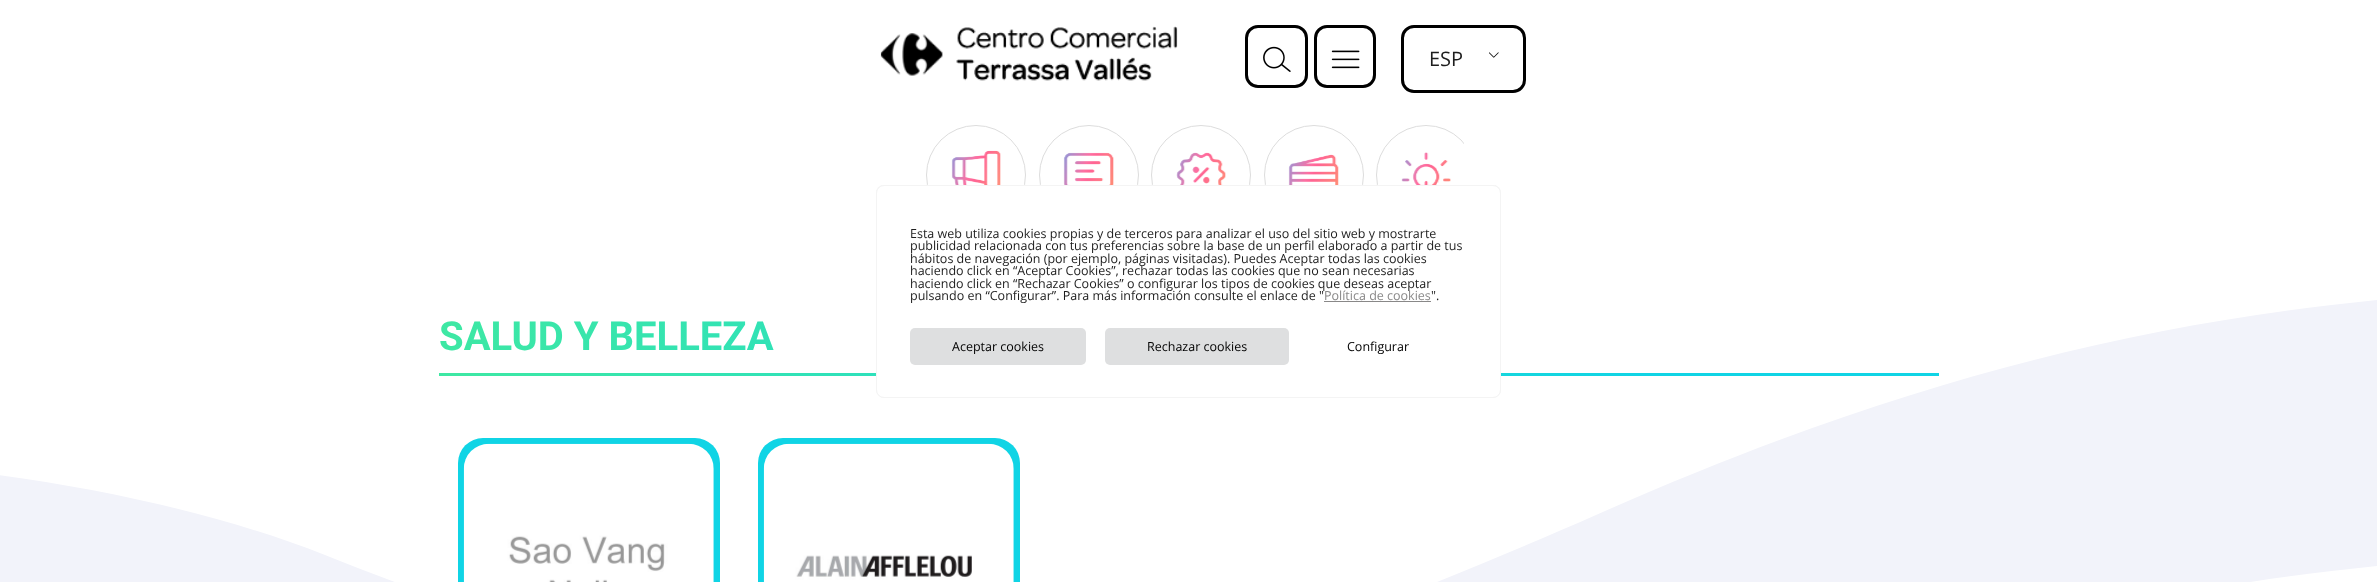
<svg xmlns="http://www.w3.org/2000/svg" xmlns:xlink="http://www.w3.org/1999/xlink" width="2377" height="582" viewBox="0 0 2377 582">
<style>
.cls-1{font:20px Open Sans;fill:#1e1e1e}
.cls-2{font:bold 40px Roboto;fill:url(#g2)}
.cls-3{font:12.5px Open Sans;fill:#1e1e1e}
.cls-4{font:12.5px Open Sans;fill:#898888}
.cls-5{font:12.5px Open Sans;fill:#000000}
</style>
<defs>
<clipPath id="clip1"><rect x="914" y="125" width="550" height="149"/></clipPath>
<linearGradient id="g1" gradientUnits="userSpaceOnUse" x1="535" y1="123" x2="1843" y2="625"><stop offset="0" stop-color="#3ee8a3"/><stop offset="0.8" stop-color="#10d4e5"/></linearGradient>
<clipPath id="clip2"><rect x="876" y="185" width="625" height="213" rx="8"/></clipPath>
<linearGradient id="g2" gradientUnits="userSpaceOnUse" x1="525" y1="89" x2="1853" y2="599"><stop offset="0" stop-color="#3ee8a3"/><stop offset="0.8" stop-color="#10d4e5"/></linearGradient>
</defs>
<rect width="100%" height="100%" fill="#ffffff"/>
<image xlink:href="image0.png" x="880" y="26" width="298" height="55"/>
<rect fill="none" stroke="#000000" stroke-width="3" x="1246.5" y="26.5" width="60" height="60" rx="11.5"/>
<image xlink:href="image1.png" x="1263" y="46" width="28" height="26"/>
<rect fill="none" stroke="#000000" stroke-width="3" x="1315.5" y="26.5" width="59" height="60" rx="11.5"/>
<image xlink:href="image2.png" x="1331" y="50" width="29" height="19"/>
<image xlink:href="image3.png" x="1489" y="52" width="10" height="6"/>
<rect fill="none" stroke="#000000" stroke-width="3" x="1402.5" y="26.5" width="122" height="65" rx="11.5"/>
<circle fill="none" stroke="#dddddd" cx="976" cy="175" r="49.5"/>
<image xlink:href="image4.png" x="951" y="150" width="50" height="35"/>
<circle fill="none" stroke="#dddddd" cx="1089" cy="175" r="49.5"/>
<image xlink:href="image5.png" x="1063" y="152" width="51" height="33"/>
<circle fill="none" stroke="#dddddd" cx="1201" cy="175" r="49.5"/>
<image xlink:href="image6.png" x="1176" y="152" width="50" height="33"/>
<circle fill="none" stroke="#dddddd" cx="1314" cy="175" r="49.5"/>
<image xlink:href="image7.png" x="1288" y="154" width="51" height="31"/>
<g clip-path="url(#clip1)">
<circle fill="none" stroke="#dddddd" cx="1426" cy="175" r="49.5"/>
</g>
<image xlink:href="image8.png" x="1401" y="152" width="50" height="33"/>
<path fill="#f2f3fa" d="M864 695C958 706 1078 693 1178 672C1276 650 1473 569 1596 515C1912 375 2153 321 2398 298C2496 289 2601 283 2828 309C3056 335 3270 421 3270 421V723H-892V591C-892 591-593 448-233 457C-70 460 153 487 325 555C413 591 542 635 656 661C770 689 821 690 864 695Z"/>
<rect fill="url(#g1)" x="439" y="373" width="1500" height="3"/>
<rect fill="#10d4e5" x="458" y="438" width="262" height="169" rx="25"/>
<image xlink:href="image9.png" x="463" y="443" width="251" height="139"/>
<rect fill="#10d4e5" x="758" y="438" width="262" height="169" rx="25"/>
<image xlink:href="image10.png" x="763" y="443" width="251" height="139"/>
<path fill="#ffffff" d="M864 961C958 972 1078 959 1178 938C1276 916 1473 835 1596 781C1912 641 2153 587 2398 564C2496 555 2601 549 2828 575C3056 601 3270 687 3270 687V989H-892V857C-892 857-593 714-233 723C-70 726 153 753 325 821C413 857 542 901 656 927C770 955 821 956 864 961Z"/>
<g clip-path="url(#clip2)">
<rect fill="#acabab" fill-opacity="0.3" filter="blur(6px)" x="876" y="184" width="625" height="212" rx="8"/>
</g>
<rect fill="#ffffff" stroke="#f4f4f4" x="876.5" y="185.5" width="624" height="212" rx="7.5"/>
<rect fill="#898888" x="1324" y="301" width="107" height="1"/>
<rect fill="#dedfe0" x="910" y="328" width="176" height="37" rx="5"/>
<rect fill="#dedfe0" x="1105" y="328" width="184" height="37" rx="5"/>
<text class="cls-1" x="1429" y="66">ESP</text>
<text class="cls-2" x="439" y="350">SALUD Y BELLEZA</text>
<text class="cls-3"><tspan x="910" y="238">Esta web utiliza cookies propias y de terceros para analizar el uso del sitio web y mostrarte</tspan><tspan x="910" y="250">publicidad relacionada con tus preferencias sobre la base de un perfil elaborado a partir de tus</tspan><tspan x="910" y="263">hábitos de navegación (por ejemplo, páginas visitadas). Puedes Aceptar todas las cookies</tspan><tspan x="910" y="275">haciendo click en “Aceptar Cookies”, rechazar todas las cookies que no sean necesarias</tspan><tspan x="910" y="288">haciendo click en “Rechazar Cookies” o configurar los tipos de cookies que deseas aceptar</tspan><tspan x="910" y="300">pulsando en “Configurar”. Para más información consulte el enlace de "</tspan></text>
<text class="cls-4" x="1324" y="300">Política de cookies</text>
<text class="cls-3" x="1431" y="300">".</text>
<text class="cls-5" x="952" y="351">Aceptar cookies</text>
<text class="cls-5" x="1147" y="351">Rechazar cookies</text>
<text class="cls-5" x="1347" y="351">Configurar</text>
</svg>
